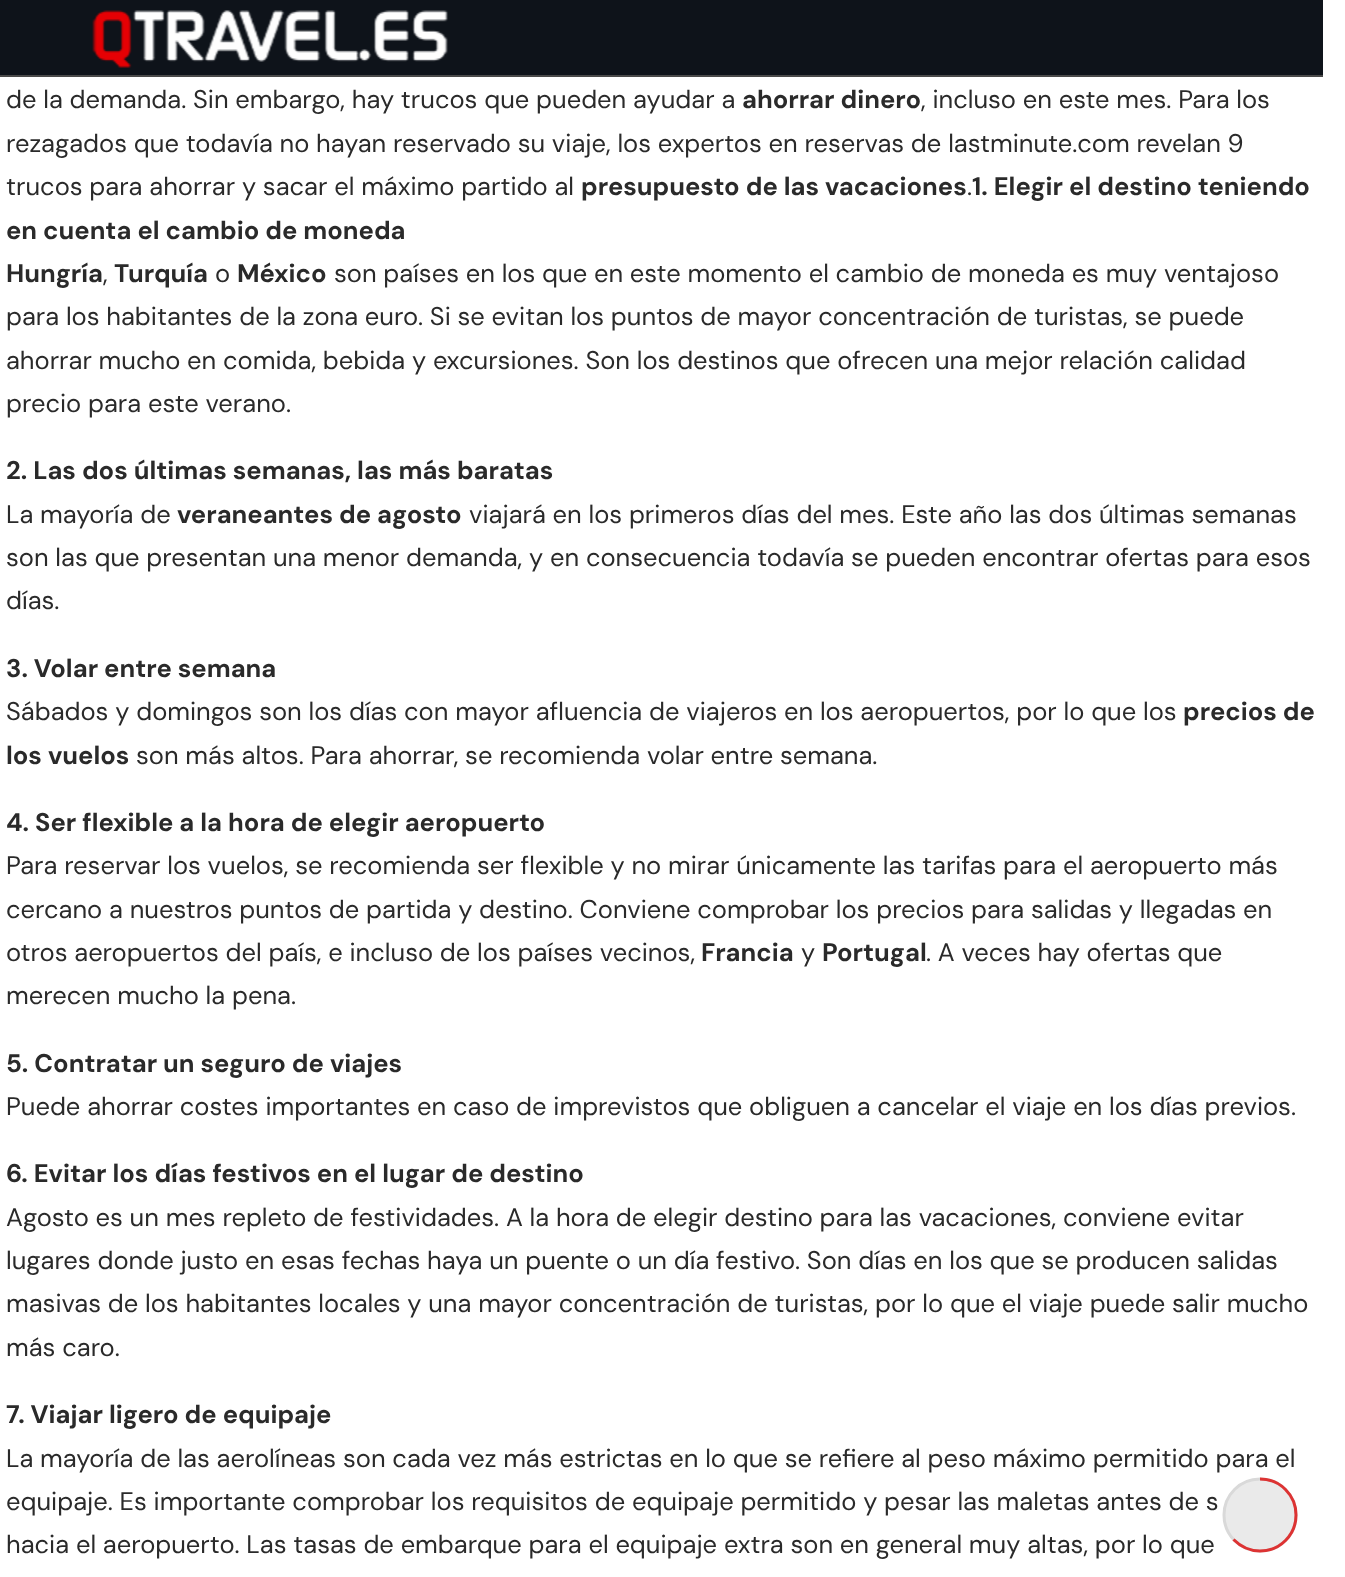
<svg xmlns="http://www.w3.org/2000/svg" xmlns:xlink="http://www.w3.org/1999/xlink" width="1345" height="1577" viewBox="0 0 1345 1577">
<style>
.cls-1{font:25.5px DM Sans;fill:#2a2a2a}
.cls-2{font:bold 25.5px DM Sans;fill:#2a2a2a}
</style>
<rect width="100%" height="100%" fill="#ffffff"/>
<rect fill="#0e131a" x="0" y="0" width="1323" height="75"/>
<image xlink:href="image0.png" x="92" y="10" width="356" height="58"/>
<rect fill="#494949" x="0" y="75" width="1323" height="2"/>
<circle fill="#eaeaea" cx="1260" cy="1515" r="36"/>
<path fill="none" stroke="#d9d9d9" stroke-width="3" d="M1260 1479C1280 1479 1296 1495 1296 1515C1296 1535 1280 1551 1260 1551C1240 1551 1224 1535 1224 1515C1224 1495 1240 1479 1260 1479"/>
<path fill="none" stroke="#dd3333" stroke-width="3" d="M1260 1479C1280 1479 1296 1495 1296 1515C1296 1535 1280 1551 1260 1551C1249.5 1551 1240.5 1546.5 1233.5 1539.5"/>
<text class="cls-1" x="6" y="108">de la demanda. Sin embargo, hay trucos que pueden ayudar a</text>
<text class="cls-2" x="742" y="108">ahorrar dinero</text>
<text class="cls-1" x="921" y="108">, incluso en este mes. Para los</text>
<text class="cls-1"><tspan x="6" y="152">rezagados que todavía no hayan reservado su viaje, los expertos en reservas de lastminute.com revelan 9</tspan><tspan x="6" y="195">trucos para ahorrar y sacar el máximo partido al</tspan></text>
<text class="cls-2" x="581" y="195">presupuesto de las vacaciones</text>
<text class="cls-1" x="967" y="195">.</text>
<text class="cls-2" x="972" y="195">1. Elegir el destino teniendo</text>
<text class="cls-2"><tspan x="6" y="239">en cuenta el cambio de moneda</tspan><tspan x="6" y="282">Hungría</tspan></text>
<text class="cls-1" x="103" y="282">,</text>
<text class="cls-2" x="114" y="282">Turquía</text>
<text class="cls-1" x="215" y="282">o</text>
<text class="cls-2" x="237" y="282">México</text>
<text class="cls-1" x="334" y="282">son países en los que en este momento el cambio de moneda es muy ventajoso</text>
<text class="cls-1"><tspan x="6" y="325">para los habitantes de la zona euro. Si se evitan los puntos de mayor concentración de turistas, se puede</tspan><tspan x="6" y="369">ahorrar mucho en comida, bebida y excursiones. Son los destinos que ofrecen una mejor relación calidad</tspan><tspan x="6" y="412">precio para este verano.</tspan></text>
<text class="cls-2" x="6" y="479">2. Las dos últimas semanas, las más baratas</text>
<text class="cls-1" x="6" y="523">La mayoría de</text>
<text class="cls-2" x="177" y="523">veraneantes de agosto</text>
<text class="cls-1" x="469" y="523">viajará en los primeros días del mes. Este año las dos últimas semanas</text>
<text class="cls-1"><tspan x="6" y="566">son las que presentan una menor demanda, y en consecuencia todavía se pueden encontrar ofertas para esos</tspan><tspan x="6" y="609">días.</tspan></text>
<text class="cls-2" x="6" y="677">3. Volar entre semana</text>
<text class="cls-1" x="6" y="720">Sábados y domingos son los días con mayor afluencia de viajeros en los aeropuertos, por lo que los</text>
<text class="cls-2" x="1183" y="720">precios de</text>
<text class="cls-2" x="6" y="764">los vuelos</text>
<text class="cls-1" x="136" y="764">son más altos. Para ahorrar, se recomienda volar entre semana.</text>
<text class="cls-2" x="6" y="831">4. Ser flexible a la hora de elegir aeropuerto</text>
<text class="cls-1"><tspan x="6" y="874">Para reservar los vuelos, se recomienda ser flexible y no mirar únicamente las tarifas para el aeropuerto más</tspan><tspan x="6" y="918">cercano a nuestros puntos de partida y destino. Conviene comprobar los precios para salidas y llegadas en</tspan><tspan x="6" y="961">otros aeropuertos del país, e incluso de los países vecinos,</tspan></text>
<text class="cls-2" x="701" y="961">Francia</text>
<text class="cls-1" x="801" y="961">y</text>
<text class="cls-2" x="822" y="961">Portugal</text>
<text class="cls-1" x="926" y="961">. A veces hay ofertas que</text>
<text class="cls-1" x="6" y="1004">merecen mucho la pena.</text>
<text class="cls-2" x="6" y="1072">5. Contratar un seguro de viajes</text>
<text class="cls-1" x="6" y="1115">Puede ahorrar costes importantes en caso de imprevistos que obliguen a cancelar el viaje en los días previos.</text>
<text class="cls-2" x="6" y="1182">6. Evitar los días festivos en el lugar de destino</text>
<text class="cls-1"><tspan x="6" y="1226">Agosto es un mes repleto de festividades. A la hora de elegir destino para las vacaciones, conviene evitar</tspan><tspan x="6" y="1269">lugares donde justo en esas fechas haya un puente o un día festivo. Son días en los que se producen salidas</tspan><tspan x="6" y="1312">masivas de los habitantes locales y una mayor concentración de turistas, por lo que el viaje puede salir mucho</tspan><tspan x="6" y="1356">más caro.</tspan></text>
<text class="cls-2" x="6" y="1423">7. Viajar ligero de equipaje</text>
<text class="cls-1"><tspan x="6" y="1467">La mayoría de las aerolíneas son cada vez más estrictas en lo que se refiere al peso máximo permitido para el</tspan><tspan x="6" y="1510">equipaje. Es importante comprobar los requisitos de equipaje permitido y pesar las maletas antes de s</tspan><tspan x="6" y="1553">hacia el aeropuerto. Las tasas de embarque para el equipaje extra son en general muy altas, por lo que</tspan></text>
</svg>
